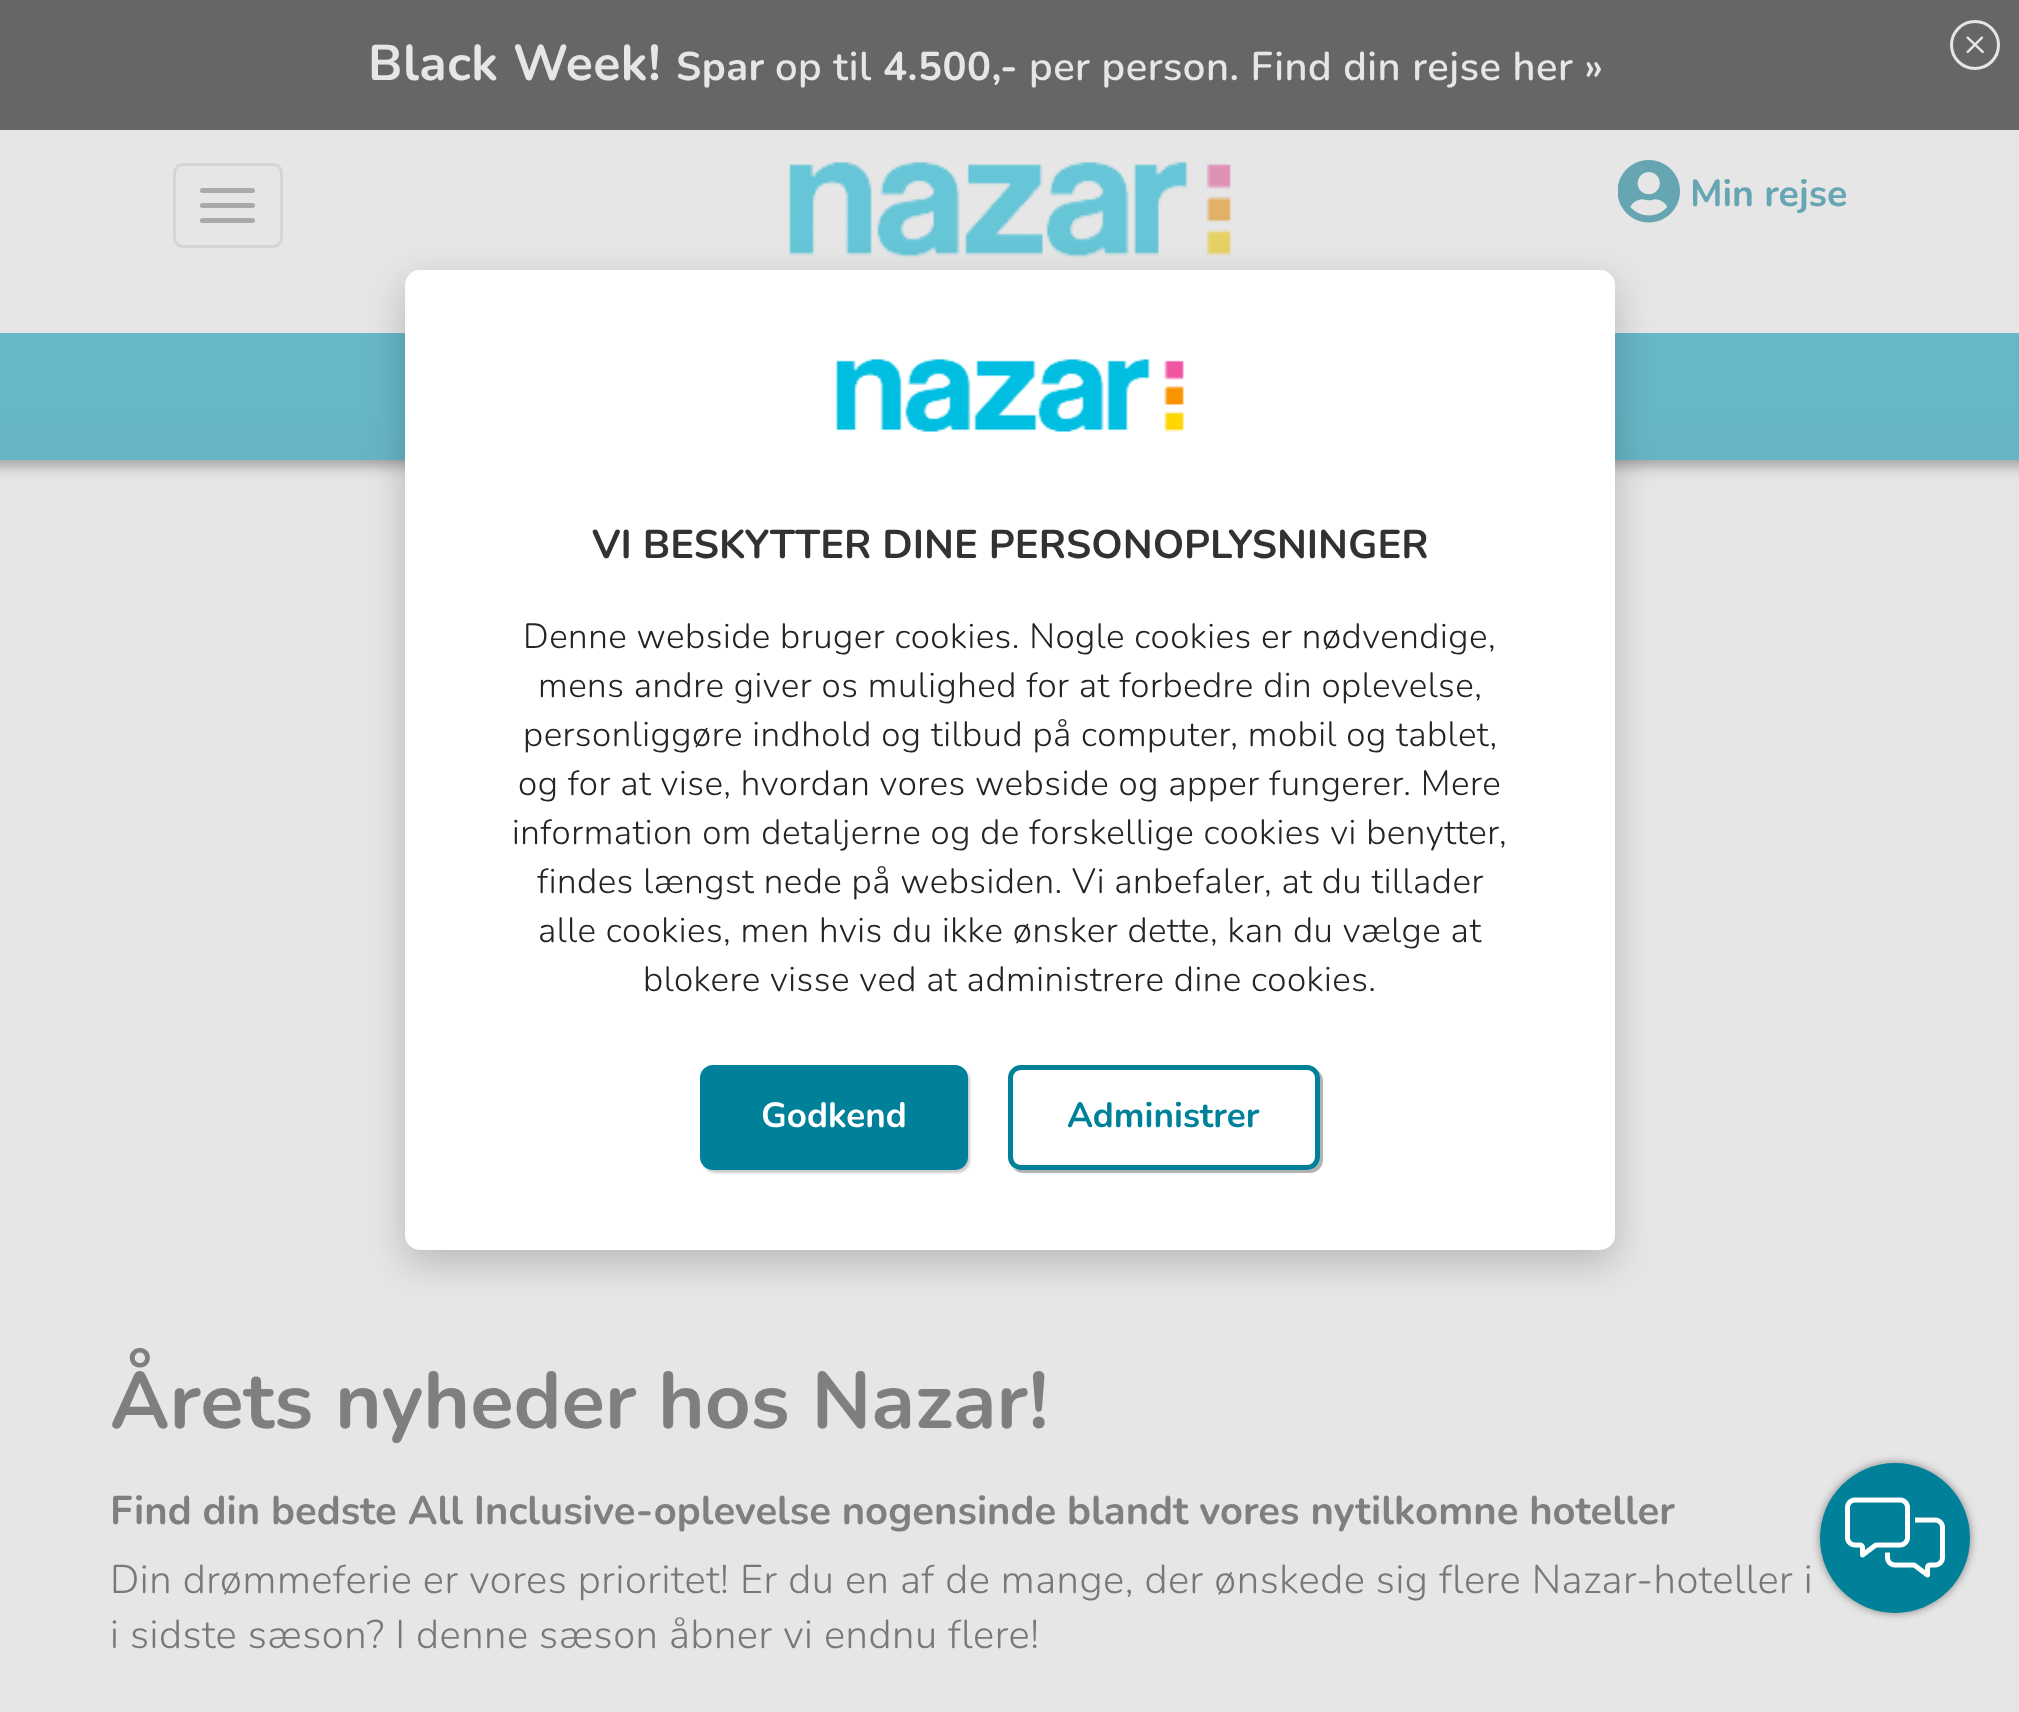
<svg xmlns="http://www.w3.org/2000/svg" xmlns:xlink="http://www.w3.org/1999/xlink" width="2019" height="1712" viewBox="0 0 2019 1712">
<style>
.cls-1{font:bold 50px Nunito;letter-spacing:0.5px;fill:#e6e6e6}
.cls-2{font:bold 40px Nunito;letter-spacing:0.5px;fill:#e6e6e6}
.cls-3{font:600 40px Nunito;letter-spacing:0.5px;fill:#e6e6e6}
.cls-4{font:bold 37.5px Nunito;fill:#66a6b3}
.cls-5{font:bold 40px Nunito;fill:#323232}
.cls-6{font:300 35px Nunito;letter-spacing:0.5px;fill:#242424}
.cls-7{font:bold 35px Nunito;fill:#ffffff}
.cls-8{font:bold 35px Nunito;fill:#008099}
.cls-9{font:bold 80px Nunito;fill:#7f7f7f}
.cls-10{font:bold 40px Nunito;fill:#7f7f7f}
.cls-11{font:300 40px Nunito;letter-spacing:0.5px;fill:#787878}
</style>
<defs>
<linearGradient id="g1" gradientUnits="userSpaceOnUse" x1="1010" y1="460" x2="1010" y2="333"><stop offset="0" stop-color="#66b5c5"/><stop offset="0.4" stop-color="#66b7c7"/></linearGradient>
</defs>
<rect width="100%" height="100%" fill="#e6e6e6"/>
<rect fill="#666666" x="0" y="0" width="2019" height="130"/>
<image xlink:href="image0.png" x="1966" y="36" width="18" height="18"/>
<circle fill="none" stroke="#e6e6e6" stroke-width="3" cx="1975" cy="45" r="23.5"/>
<rect fill="#666666" fill-opacity="0.6" filter="blur(7.5px)" x="-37" y="338" width="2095" height="127" rx="25"/>
<rect fill="#e6e6e6" x="0" y="324" width="2019" height="9"/>
<rect fill="none" stroke="#d5d5d5" stroke-width="3" x="174.5" y="164.5" width="107" height="82" rx="8.5"/>
<rect fill="#aaaaaa" x="200" y="188" width="55" height="5" rx="2.5"/>
<rect fill="#aaaaaa" x="200" y="203" width="55" height="5" rx="2.5"/>
<rect fill="#aaaaaa" x="200" y="218" width="55" height="5" rx="2.5"/>
<image xlink:href="image1.png" x="789" y="161" width="442" height="97"/>
<image xlink:href="image2.png" x="1618" y="160" width="62" height="63"/>
<rect fill="url(#g1)" x="0" y="333" width="2019" height="127"/>
<rect fill="#000000" fill-opacity="0.2" filter="blur(19px)" x="405" y="283" width="1210" height="980" rx="15"/>
<rect fill="#ffffff" x="405" y="270" width="1210" height="980" rx="15"/>
<image xlink:href="image3.png" x="836" y="359" width="349" height="73"/>
<rect fill="#000000" fill-opacity="0.2" filter="blur(1px)" x="703" y="1068" width="267" height="105" rx="13"/>
<rect fill="#008099" stroke="#008099" stroke-width="5" x="702.5" y="1067.5" width="263" height="100" rx="10.5"/>
<path fill="#b3b3b3" d="M1012 1167C1015 1171 1019 1173 1023 1173H1310C1317 1173 1323 1167 1323 1160V1081C1323 1077 1321 1073 1318 1071C1319 1073 1320 1075 1320 1078V1158C1320 1164 1314 1170 1308 1170H1020C1017 1170 1014 1169 1012 1167Z"/>
<rect fill="#ffffff" stroke="#008099" stroke-width="5" x="1010.5" y="1067.5" width="307" height="100" rx="10.5"/>
<rect fill="#808080" filter="blur(4px)" x="1820" y="1463" width="150" height="150" rx="75"/>
<circle fill="#008099" cx="1895" cy="1538" r="75"/>
<image xlink:href="image4.png" x="1845" y="1497" width="100" height="81"/>
<text class="cls-1" x="368" y="80">Black Week!</text>
<text class="cls-2" x="676" y="80">Spar</text>
<text class="cls-3" x="775" y="80">op til</text>
<text class="cls-2" x="883" y="80">4.500,-</text>
<text class="cls-3" x="1029" y="80">per person. Find din rejse her »</text>
<text class="cls-4" x="1690" y="206">Min rejse</text>
<text class="cls-5" x="592" y="558">VI BESKYTTER DINE PERSONOPLYSNINGER</text>
<text class="cls-6" x="523" y="648">Denne webside bruger cookies. Nogle cookies er nødvendige,</text>
<text class="cls-6" x="538" y="697">mens andre giver os mulighed for at forbedre din oplevelse,</text>
<text class="cls-6" x="523" y="746">personliggøre indhold og tilbud på computer, mobil og tablet,</text>
<text class="cls-6" x="518" y="795">og for at vise, hvordan vores webside og apper fungerer. Mere</text>
<text class="cls-6" x="512" y="844">information om detaljerne og de forskellige cookies vi benytter,</text>
<text class="cls-6" x="537" y="893">findes længst nede på websiden. Vi anbefaler, at du tillader</text>
<text class="cls-6" x="538" y="942">alle cookies, men hvis du ikke ønsker dette, kan du vælge at</text>
<text class="cls-6" x="643" y="991">blokere visse ved at administrere dine cookies.</text>
<text class="cls-7" x="761" y="1127">Godkend</text>
<text class="cls-8" x="1067" y="1127">Administrer</text>
<text class="cls-9" x="110" y="1428">Årets nyheder hos Nazar!</text>
<text class="cls-10" x="110" y="1524">Find din bedste All Inclusive-oplevelse nogensinde blandt vores nytilkomne hoteller</text>
<text class="cls-11"><tspan x="110" y="1593">Din drømmeferie er vores prioritet! Er du en af de mange, der ønskede sig flere Nazar-hoteller i</tspan><tspan x="110" y="1648">i sidste sæson? I denne sæson åbner vi endnu flere!</tspan></text>
</svg>
